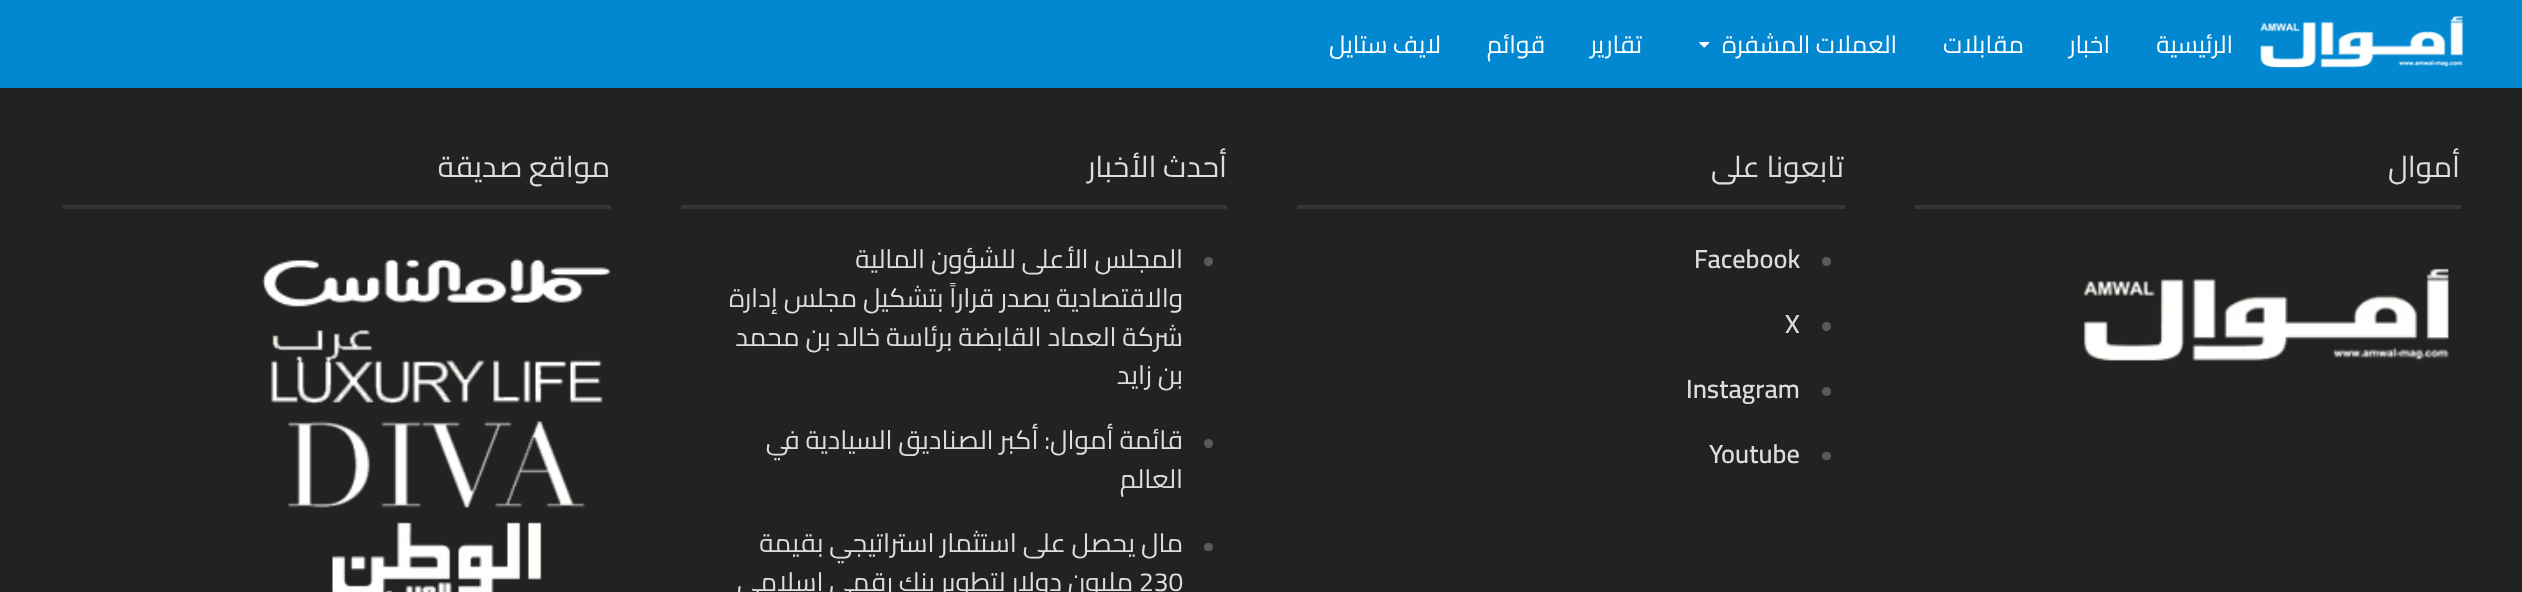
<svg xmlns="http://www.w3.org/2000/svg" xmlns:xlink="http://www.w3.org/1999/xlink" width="2522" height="592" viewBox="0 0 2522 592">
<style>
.cls-1{font:24.5px Cairo;direction:rtl;fill:#ffffff}
.cls-2{font:29.75px Cairo;direction:rtl;fill:#dddddd}
.cls-3{font:600 26.25px Cairo;fill:#dddddd}
.cls-4{font:26.25px Cairo;direction:rtl;fill:#dddddd}
.cls-5{font:26.25px Cairo;fill:#dddddd}
</style>
<rect width="100%" height="100%" fill="#222222"/>
<rect fill="#0288d1" x="0" y="0" width="2522" height="88"/>
<image xlink:href="image0.png" x="2260" y="16" width="203" height="52"/>
<image xlink:href="image1.png" x="1699" y="42" width="11" height="6"/>
<rect fill="#353535" x="1915" y="205" width="546" height="4"/>
<image xlink:href="image2.png" x="2083" y="268" width="366" height="93"/>
<rect fill="#353535" x="1297" y="205" width="548" height="4"/>
<circle fill="#5a5a5a" cx="1826.5" cy="261.5" r="4.5"/>
<circle fill="#5a5a5a" cx="1826.5" cy="326.5" r="4.5"/>
<circle fill="#5a5a5a" cx="1826.5" cy="391.5" r="4.5"/>
<rect fill="#5a5a5a" x="1822" y="452" width="9" height="8" rx="4"/>
<rect fill="#353535" x="681" y="205" width="546" height="4"/>
<circle fill="#5a5a5a" cx="1208.5" cy="261.5" r="4.5"/>
<circle fill="#5a5a5a" cx="1208.5" cy="443.5" r="4.5"/>
<rect fill="#5a5a5a" x="1204" y="543" width="9" height="8" rx="4"/>
<rect fill="#353535" x="63" y="205" width="548" height="4"/>
<image xlink:href="image3.png" x="262" y="258" width="349" height="50"/>
<image xlink:href="image4.png" x="270" y="330" width="333" height="75"/>
<image xlink:href="image5.png" x="288" y="421" width="297" height="87"/>
<image xlink:href="image6.png" x="332" y="522" width="210" height="70"/>
<text class="cls-1" x="2233" y="53">الرئيسية</text>
<text class="cls-1" x="2110" y="53">اخبار</text>
<text class="cls-1" x="2024" y="53">مقابلات</text>
<text class="cls-1" x="1897" y="53">العملات المشفرة</text>
<text class="cls-1" x="1642" y="53">تقارير</text>
<text class="cls-1" x="1545" y="53">قوائم</text>
<text class="cls-1" x="1441" y="53">لايف ستايل</text>
<text class="cls-2" x="2460" y="177">أموال</text>
<text class="cls-2" x="1844" y="177">تابعونا على</text>
<text class="cls-3" x="1694" y="268">Facebook</text>
<text class="cls-3" x="1785" y="333">X</text>
<text class="cls-3" x="1686" y="398">Instagram</text>
<text class="cls-3" x="1709" y="463">Youtube</text>
<text class="cls-2" x="1227" y="177">أحدث الأخبار</text>
<text class="cls-4"><tspan x="1183" y="268">المجلس الأعلى للشؤون المالية</tspan><tspan x="1183" y="307">والاقتصادية يصدر قراراً بتشكيل مجلس إدارة</tspan><tspan x="1183" y="346">شركة العماد القابضة برئاسة خالد بن محمد</tspan><tspan x="1183" y="384">بن زايد</tspan></text>
<text class="cls-4"><tspan x="1183" y="449">قائمة أموال: أكبر الصناديق السيادية في</tspan><tspan x="1183" y="488">العالم</tspan></text>
<text class="cls-4" x="1183" y="552">مال يحصل على استثمار استراتيجي بقيمة</text>
<text class="cls-5" x="1139" y="591">230</text>
<text class="cls-4" x="1133" y="591">مليون دولار لتطوير بنك رقمي إسلامي</text>
<text class="cls-2" x="610" y="177">مواقع صديقة</text>
</svg>
